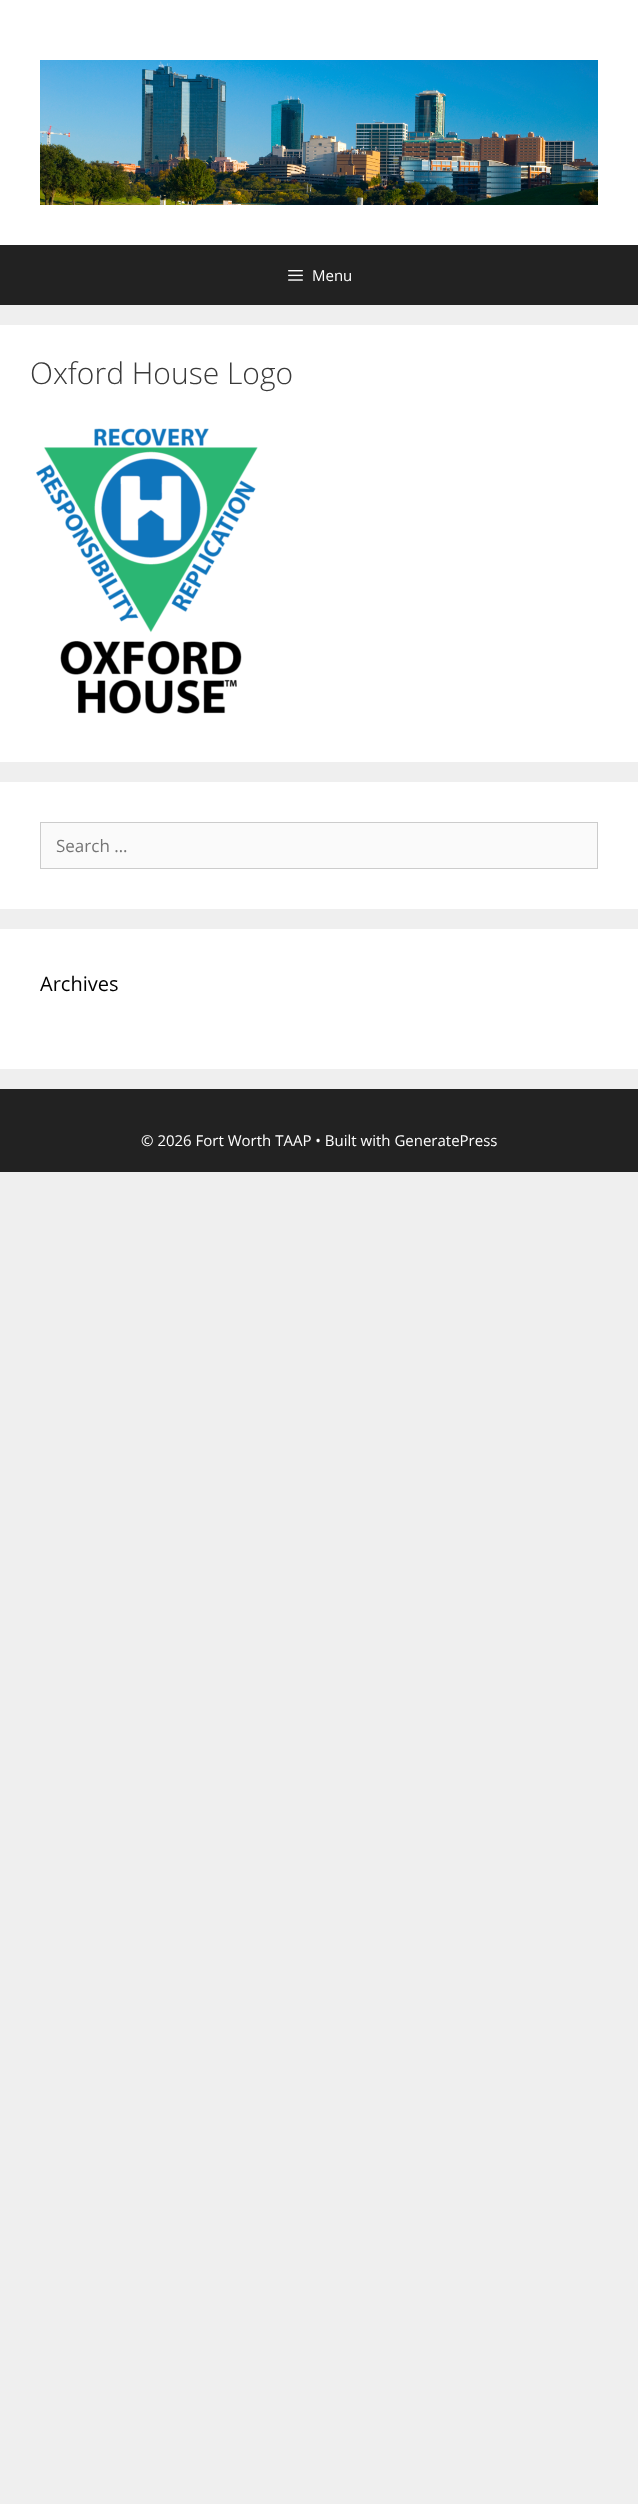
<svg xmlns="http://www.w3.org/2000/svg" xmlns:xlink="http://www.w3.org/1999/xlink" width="638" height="2504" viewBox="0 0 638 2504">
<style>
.cls-1{font:15px Open Sans;fill:#ffffff}
.cls-2{font:300 30px Open Sans;fill:#3a3a3a}
.cls-3{font:17px Open Sans;fill:#757575}
.cls-4{font:20px Open Sans;fill:#000000}
</style>
<rect width="100%" height="100%" fill="#efefef"/>
<rect fill="#ffffff" x="0" y="0" width="638" height="245"/>
<image xlink:href="image0.png" x="40" y="60" width="558" height="145"/>
<rect fill="#222222" x="0" y="245" width="638" height="60"/>
<image xlink:href="image1.png" x="288" y="270" width="15" height="11"/>
<rect fill="#ffffff" x="0" y="325" width="638" height="437"/>
<image xlink:href="image2.png" x="36" y="428" width="222" height="286"/>
<rect fill="#ffffff" x="0" y="782" width="638" height="127"/>
<rect fill="#fafafa" stroke="#cccccc" x="40.5" y="822.5" width="557" height="46"/>
<rect fill="#ffffff" x="0" y="929" width="638" height="140"/>
<rect fill="#222222" x="0" y="1089" width="638" height="83"/>
<text class="cls-1" x="312" y="281">Menu</text>
<text class="cls-2" x="30" y="384">Oxford House Logo</text>
<text class="cls-3" x="56" y="852">Search …</text>
<text class="cls-4" x="40" y="991">Archives</text>
<text class="cls-1" x="141" y="1146">© 2026 Fort Worth TAAP • Built with GeneratePress</text>
</svg>
